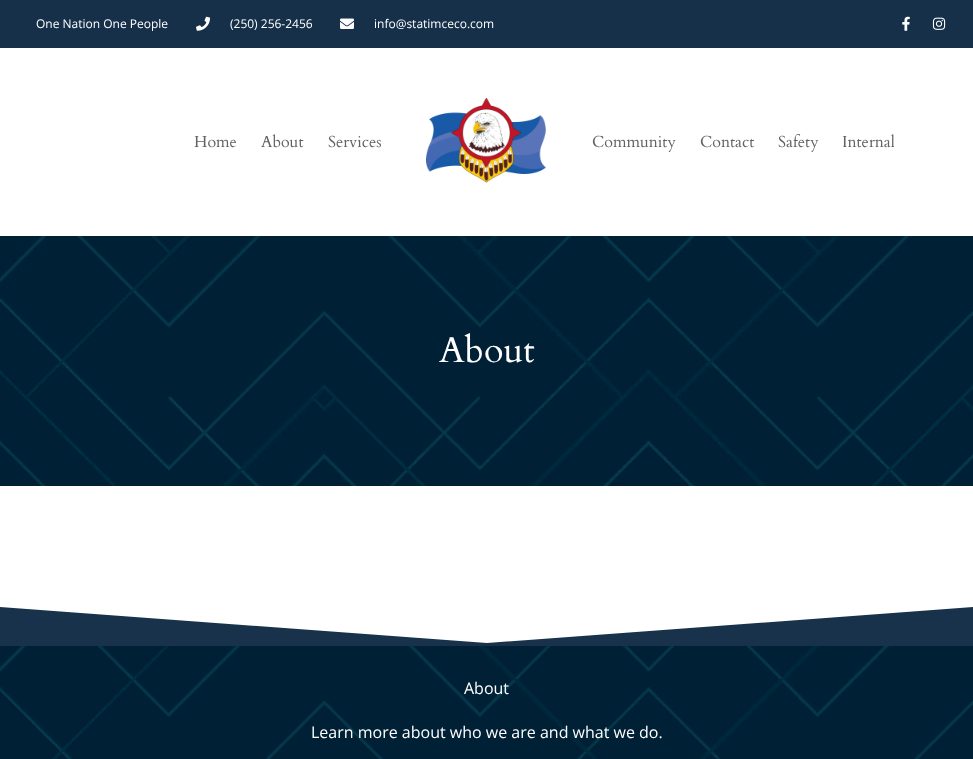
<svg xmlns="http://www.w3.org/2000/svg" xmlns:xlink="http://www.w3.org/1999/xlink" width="973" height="759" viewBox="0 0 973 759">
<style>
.cls-1{font:12px Open Sans;fill:#ffffff}
.cls-2{font:16px Cardo;fill:#626262}
.cls-3{font:36px Cardo;fill:#ffffff}
.cls-4{font:16px Open Sans;fill:#ffffff}
</style>
<rect width="100%" height="100%" fill="#ffffff"/>
<rect fill="#163049" x="0" y="0" width="973" height="48"/>
<image xlink:href="image0.png" x="196" y="16" width="14" height="15"/>
<image xlink:href="image1.png" x="340" y="18" width="14" height="11"/>
<image xlink:href="image2.png" x="902" y="16" width="8" height="15"/>
<image xlink:href="image3.png" x="932" y="17" width="14" height="13"/>
<image xlink:href="image4.png" x="426" y="98" width="120" height="85"/>
<image xlink:href="image5.png" x="0" y="236" width="973" height="250"/>
<rect fill="#18324b" x="0" y="607" width="973" height="39"/>
<path fill="#ffffff" d="M487 643L0 607V605H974V607Z"/>
<image xlink:href="image6.png" x="0" y="646" width="973" height="113"/>
<text class="cls-1" x="36" y="28">One Nation One People</text>
<text class="cls-1" x="230" y="28">(250) 256-2456</text>
<text class="cls-1" x="374" y="28">info@statimceco.com</text>
<text class="cls-2" x="194" y="147">Home</text>
<text class="cls-2" x="261" y="147">About</text>
<text class="cls-2" x="328" y="147">Services</text>
<text class="cls-2" x="592" y="147">Community</text>
<text class="cls-2" x="700" y="147">Contact</text>
<text class="cls-2" x="778" y="147">Safety</text>
<text class="cls-2" x="842" y="147">Internal</text>
<text class="cls-3" x="439" y="362">About</text>
<text class="cls-4" x="464" y="694">About</text>
<text class="cls-4" x="311" y="738">Learn more about who we are and what we do.</text>
</svg>
